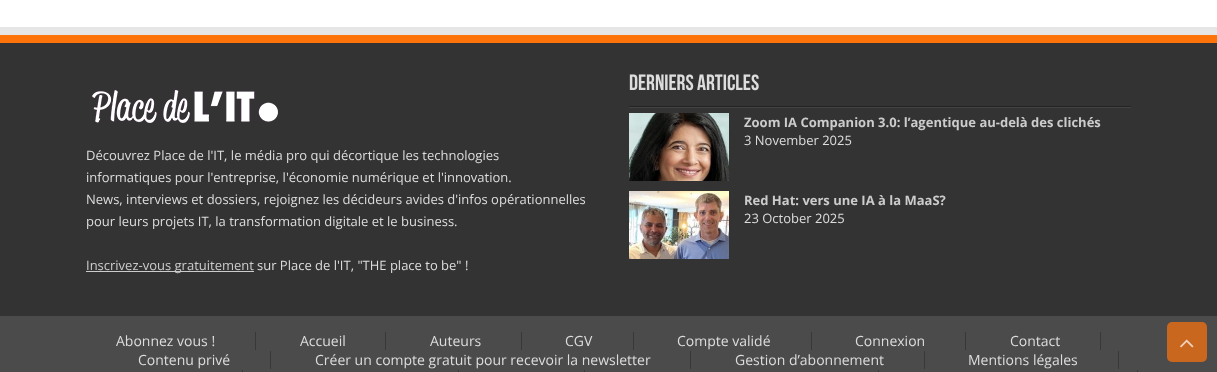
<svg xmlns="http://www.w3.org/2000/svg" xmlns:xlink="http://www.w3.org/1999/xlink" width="1217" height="372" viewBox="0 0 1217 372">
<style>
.cls-1{font:13px Open Sans;fill:#dddddd}
.cls-2{font:13px Open Sans;fill:#cccccc}
.cls-3{font:bold 22px Bebas Neue;fill:#dddddd}
.cls-4{font:bold 13px Open Sans;fill:#cccccc}
.cls-5{font:14px Open Sans;fill:#dddddd}
</style>
<rect width="100%" height="100%" fill="#ffffff"/>
<rect fill="#e6e6e6" x="0" y="27" width="1217" height="8"/>
<rect fill="#333333" x="0" y="43" width="1217" height="273"/>
<rect fill="#ff730b" x="0" y="35" width="1217" height="8"/>
<image xlink:href="image0.png" x="92" y="90" width="186" height="33"/>
<rect fill="#cccccc" x="86" y="271" width="168" height="1"/>
<rect fill="#222222" x="629" y="106" width="502" height="1"/>
<rect fill="#444444" x="629" y="107" width="502" height="1"/>
<image xlink:href="image1.png" x="629" y="113" width="100" height="68"/>
<image xlink:href="image2.png" x="629" y="191" width="100" height="68"/>
<rect fill="#4b4b4b" x="0" y="316" width="1217" height="56"/>
<rect fill="#383838" x="255" y="332" width="1" height="18"/>
<rect fill="#383838" x="385" y="332" width="1" height="18"/>
<rect fill="#383838" x="521" y="332" width="1" height="18"/>
<rect fill="#383838" x="633" y="332" width="1" height="18"/>
<rect fill="#383838" x="811" y="332" width="1" height="18"/>
<rect fill="#383838" x="965" y="332" width="1" height="18"/>
<rect fill="#383838" x="1100" y="332" width="1" height="18"/>
<rect fill="#383838" x="270" y="351" width="1" height="18"/>
<rect fill="#383838" x="690" y="351" width="1" height="18"/>
<rect fill="#383838" x="924" y="351" width="1" height="18"/>
<rect fill="#383838" x="1118" y="351" width="1" height="18"/>
<rect fill="#383838" x="242" y="370" width="1" height="2"/>
<rect fill="#383838" x="458" y="370" width="1" height="2"/>
<rect fill="#383838" x="584" y="370" width="1" height="2"/>
<rect fill="#383838" x="878" y="370" width="1" height="2"/>
<rect fill="#383838" x="1137" y="370" width="1" height="2"/>
<rect fill="#c9671e" x="1167" y="322" width="40" height="40" rx="5"/>
<image xlink:href="image3.png" x="1180" y="339" width="14" height="9"/>
<text class="cls-1"><tspan x="86" y="160">Découvrez Place de l'IT, le média pro qui décortique les technologies</tspan><tspan x="86" y="182">informatiques pour l'entreprise, l'économie numérique et l'innovation.</tspan><tspan x="86" y="204">News, interviews et dossiers, rejoignez les décideurs avides d'infos opérationnelles</tspan><tspan x="86" y="226">pour leurs projets IT, la transformation digitale et le business.</tspan></text>
<text class="cls-2" x="86" y="270">Inscrivez-vous gratuitement</text>
<text class="cls-1" x="257" y="270">sur Place de l'IT, "THE place to be" !</text>
<text class="cls-3" x="629" y="90">Derniers Articles</text>
<text class="cls-4" x="744" y="127">Zoom IA Companion 3.0: l’agentique au-delà des clichés</text>
<text class="cls-1" x="744" y="145">3 November 2025</text>
<text class="cls-4" x="744" y="205">Red Hat: vers une IA à la MaaS?</text>
<text class="cls-1" x="744" y="223">23 October 2025</text>
<text class="cls-5" x="116" y="346">Abonnez vous !</text>
<text class="cls-5" x="300" y="346">Accueil</text>
<text class="cls-5" x="430" y="346">Auteurs</text>
<text class="cls-5" x="565" y="346">CGV</text>
<text class="cls-5" x="677" y="346">Compte validé</text>
<text class="cls-5" x="855" y="346">Connexion</text>
<text class="cls-5" x="1010" y="346">Contact</text>
<text class="cls-5" x="138" y="365">Contenu privé</text>
<text class="cls-5" x="315" y="365">Créer un compte gratuit pour recevoir la newsletter</text>
<text class="cls-5" x="735" y="365">Gestion d’abonnement</text>
<text class="cls-5" x="968" y="365">Mentions légales</text>
</svg>
